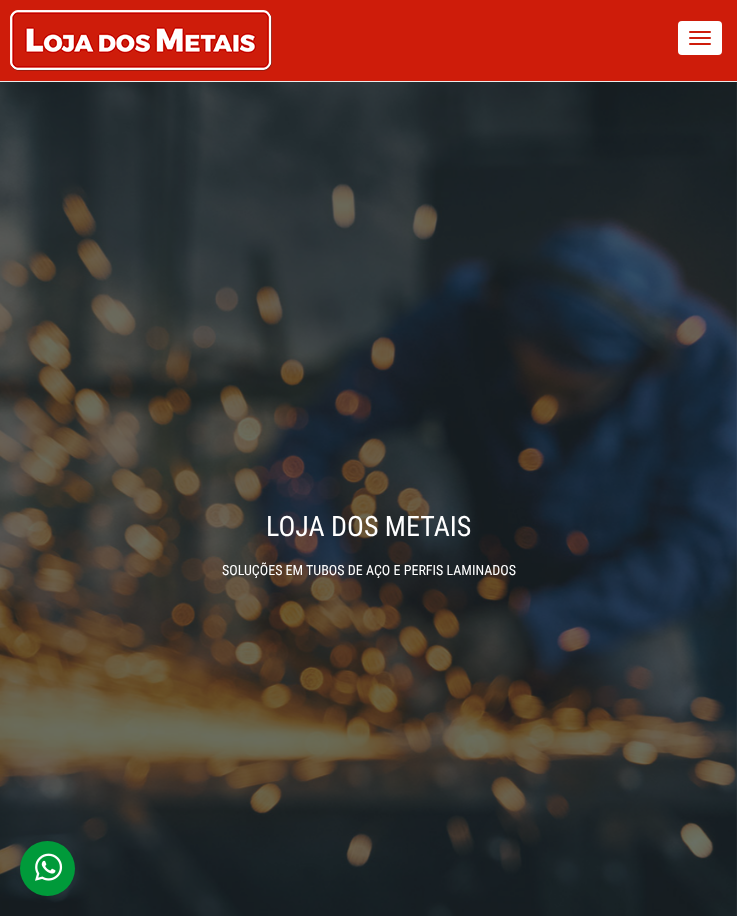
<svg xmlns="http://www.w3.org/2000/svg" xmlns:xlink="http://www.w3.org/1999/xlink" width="737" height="916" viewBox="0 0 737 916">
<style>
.cls-1{font:28px Roboto Condensed;fill:#ffffff}
.cls-2{font:14px Roboto Condensed;fill:#ffffff}
</style>
<rect width="100%" height="100%" fill="#ffffff"/>
<rect fill="#ce1c0a" x="0" y="0" width="737" height="81"/>
<rect fill="#ebebeb" x="0" y="81" width="737" height="1"/>
<image xlink:href="image0.png" x="10" y="10" width="262" height="61"/>
<rect fill="#ffffff" x="678" y="21" width="44" height="34" rx="4"/>
<rect fill="#ce1c0a" x="689" y="31" width="22" height="2" rx="1"/>
<rect fill="#ce1c0a" x="689" y="37" width="22" height="2" rx="1"/>
<rect fill="#ce1c0a" x="689" y="43" width="22" height="2" rx="1"/>
<image xlink:href="image1.png" x="0" y="82" width="737" height="834"/>
<rect fill="#000000" fill-opacity="0.2" filter="blur(2.5px)" x="20" y="841" width="55" height="55" rx="27.5"/>
<circle fill="#009a3a" cx="47.5" cy="868.5" r="27.5"/>
<image xlink:href="image2.png" x="35" y="853" width="28" height="28"/>
<text class="cls-1" x="266" y="536">LOJA DOS METAIS</text>
<text class="cls-2" x="222" y="575">SOLUÇÕES EM TUBOS DE AÇO E PERFIS LAMINADOS</text>
</svg>
